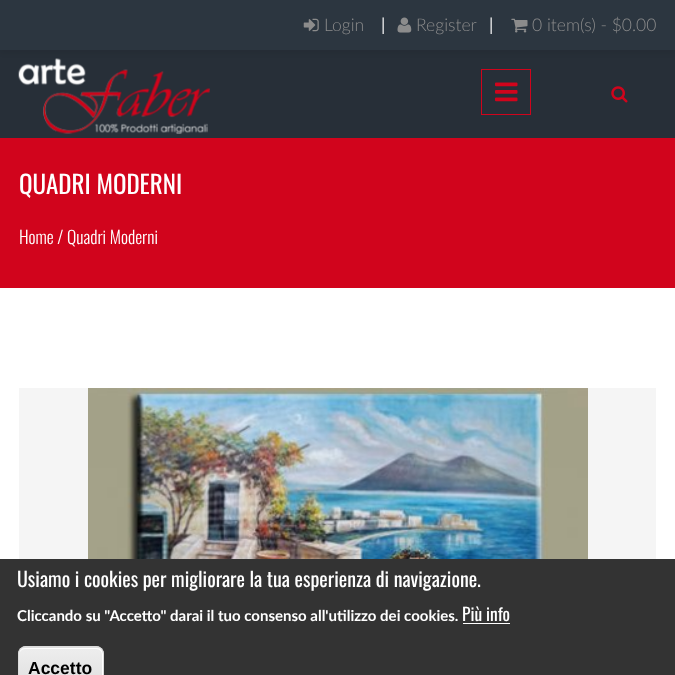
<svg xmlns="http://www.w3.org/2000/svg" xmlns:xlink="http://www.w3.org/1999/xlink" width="675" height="675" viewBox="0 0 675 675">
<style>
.cls-1{font:300 17.5px Lato;fill:#8c8c8c}
.cls-2{font:17.5px Lato;fill:#eeeeee}
.cls-3{font:25px Oswald;fill:#ffffff}
.cls-4{font:300 17.5px Oswald;fill:#ffffff}
.cls-5{font:20px Oswald;fill:#ffffff}
.cls-6{font:bold 15px Lato;fill:#ffffff}
.cls-7{font:17.5px Oswald;fill:#ffffff}
.cls-8{font:bold 17.5px Liberation Sans;fill:#000000}
</style>
<defs>
<clipPath id="clip1"><rect x="18" y="646" width="86" height="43" rx="8"/></clipPath>
<linearGradient id="g1" gradientUnits="userSpaceOnUse" x1="61" y1="608" x2="61" y2="648"><stop offset="0.05" stop-color="#ededed"/><stop offset="1" stop-color="#dfdfdf"/></linearGradient>
<linearGradient id="g2" gradientUnits="userSpaceOnUse" x1="61" y1="648" x2="61" y2="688"><stop offset="0.05" stop-color="#ededed"/><stop offset="1" stop-color="#dfdfdf"/></linearGradient>
</defs>
<rect width="100%" height="100%" fill="#ffffff"/>
<rect fill="#272f38" x="0" y="50" width="675" height="88"/>
<rect fill="#000000" fill-opacity="0.05" filter="blur(2px)" x="0" y="4" width="675" height="50"/>
<rect fill="#2c3640" x="0" y="0" width="675" height="50"/>
<image xlink:href="image0.png" x="303" y="18" width="16" height="14"/>
<image xlink:href="image1.png" x="397" y="17" width="15" height="16"/>
<image xlink:href="image2.png" x="511" y="18" width="17" height="15"/>
<image xlink:href="image3.png" x="18" y="58" width="192" height="76"/>
<rect fill="none" stroke="#d1041c" x="481.5" y="69.5" width="49" height="45"/>
<image xlink:href="image4.png" x="495" y="82" width="23" height="20"/>
<image xlink:href="image5.png" x="611" y="86" width="17" height="17"/>
<rect fill="#d1041c" x="0" y="138" width="675" height="150"/>
<rect fill="#f5f5f5" x="19" y="388" width="637" height="171"/>
<image xlink:href="image6.png" x="88" y="388" width="500" height="171"/>
<rect fill="#333333" x="0" y="559" width="675" height="116"/>
<rect fill="#ffffff" x="463" y="623" width="47" height="1"/>
<g clip-path="url(#clip1)">
<rect fill="url(#g1)" x="18" y="646" width="86" height="2"/>
<rect fill="url(#g2)" x="18" y="648" width="86" height="27"/>
</g>
<path fill="#ffffff" d="M25 649H96C100 649 102 652 102 655V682C102 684 102 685 101 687C102 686 103 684 103 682V654C103 651 100 648 97 648H25C22 648 19 651 19 654V655C19 652 22 649 25 649Z"/>
<rect fill="none" stroke="#dcdcdc" x="18.5" y="646.5" width="85" height="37" rx="7.5"/>
<text class="cls-1" x="324" y="31">Login</text>
<text class="cls-2" x="381" y="31">|</text>
<text class="cls-1" x="416" y="31">Register</text>
<text class="cls-2" x="489" y="31">|</text>
<text class="cls-1" x="532" y="31">0 item(s) - $0.00</text>
<text class="cls-3" x="19" y="194">QUADRI MODERNI</text>
<text class="cls-4" x="19" y="244">Home / Quadri Moderni</text>
<text class="cls-5" x="17" y="587">Usiamo i cookies per migliorare la tua esperienza di navigazione.</text>
<text class="cls-6" x="17" y="621">Cliccando su "Accetto" darai il tuo consenso all'utilizzo dei cookies.</text>
<text class="cls-7" x="462" y="621">Più info</text>
<text class="cls-8" x="28" y="674">Accetto</text>
</svg>
